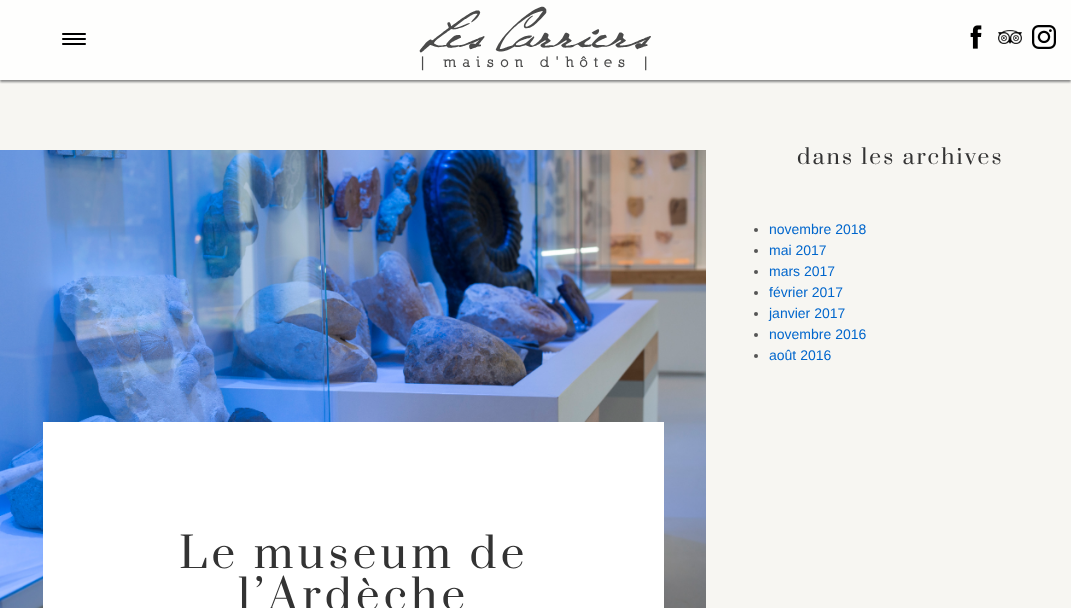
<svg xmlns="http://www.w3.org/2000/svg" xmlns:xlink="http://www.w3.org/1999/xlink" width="1071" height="608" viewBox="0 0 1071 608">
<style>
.cls-1{font:21px Prata;letter-spacing:2.1px;fill:#333333}
.cls-2{font:14px Liberation Sans;fill:#0066cc}
.cls-3{font:42px Prata;letter-spacing:4.25px;fill:#333333}
</style>
<rect width="100%" height="100%" fill="#f7f6f2"/>
<rect fill="#888888" filter="blur(1px)" x="0" y="2" width="1071" height="80"/>
<rect fill="#fefefd" x="0" y="0" width="1071" height="80"/>
<image xlink:href="image0.png" x="62" y="33" width="24" height="12"/>
<image xlink:href="image1.png" x="419" y="6" width="232" height="65"/>
<image xlink:href="image2.png" x="970" y="25" width="12" height="24"/>
<image xlink:href="image3.png" x="998" y="30" width="24" height="14"/>
<image xlink:href="image4.png" x="1032" y="25" width="24" height="24"/>
<circle fill="#555555" cx="756" cy="230" r="2"/>
<circle fill="#555555" cx="756" cy="251" r="2"/>
<circle fill="#555555" cx="756" cy="272" r="2"/>
<circle fill="#555555" cx="756" cy="293" r="2"/>
<circle fill="#555555" cx="756" cy="314" r="2"/>
<circle fill="#555555" cx="756" cy="335" r="2"/>
<circle fill="#555555" cx="756" cy="356" r="2"/>
<image xlink:href="image5.png" x="0" y="150" width="706" height="458"/>
<rect fill="#ffffff" x="43" y="422" width="621" height="186"/>
<text class="cls-1" x="797" y="164">dans les archives</text>
<text class="cls-2"><tspan x="769" y="234">novembre 2018</tspan><tspan x="769" y="255">mai 2017</tspan><tspan x="769" y="276">mars 2017</tspan><tspan x="769" y="297">février 2017</tspan><tspan x="769" y="318">janvier 2017</tspan><tspan x="769" y="339">novembre 2016</tspan><tspan x="769" y="360">août 2016</tspan></text>
<text class="cls-3" x="179" y="568">Le museum de</text>
<text class="cls-3" x="238" y="610">l’Ardèche</text>
</svg>
